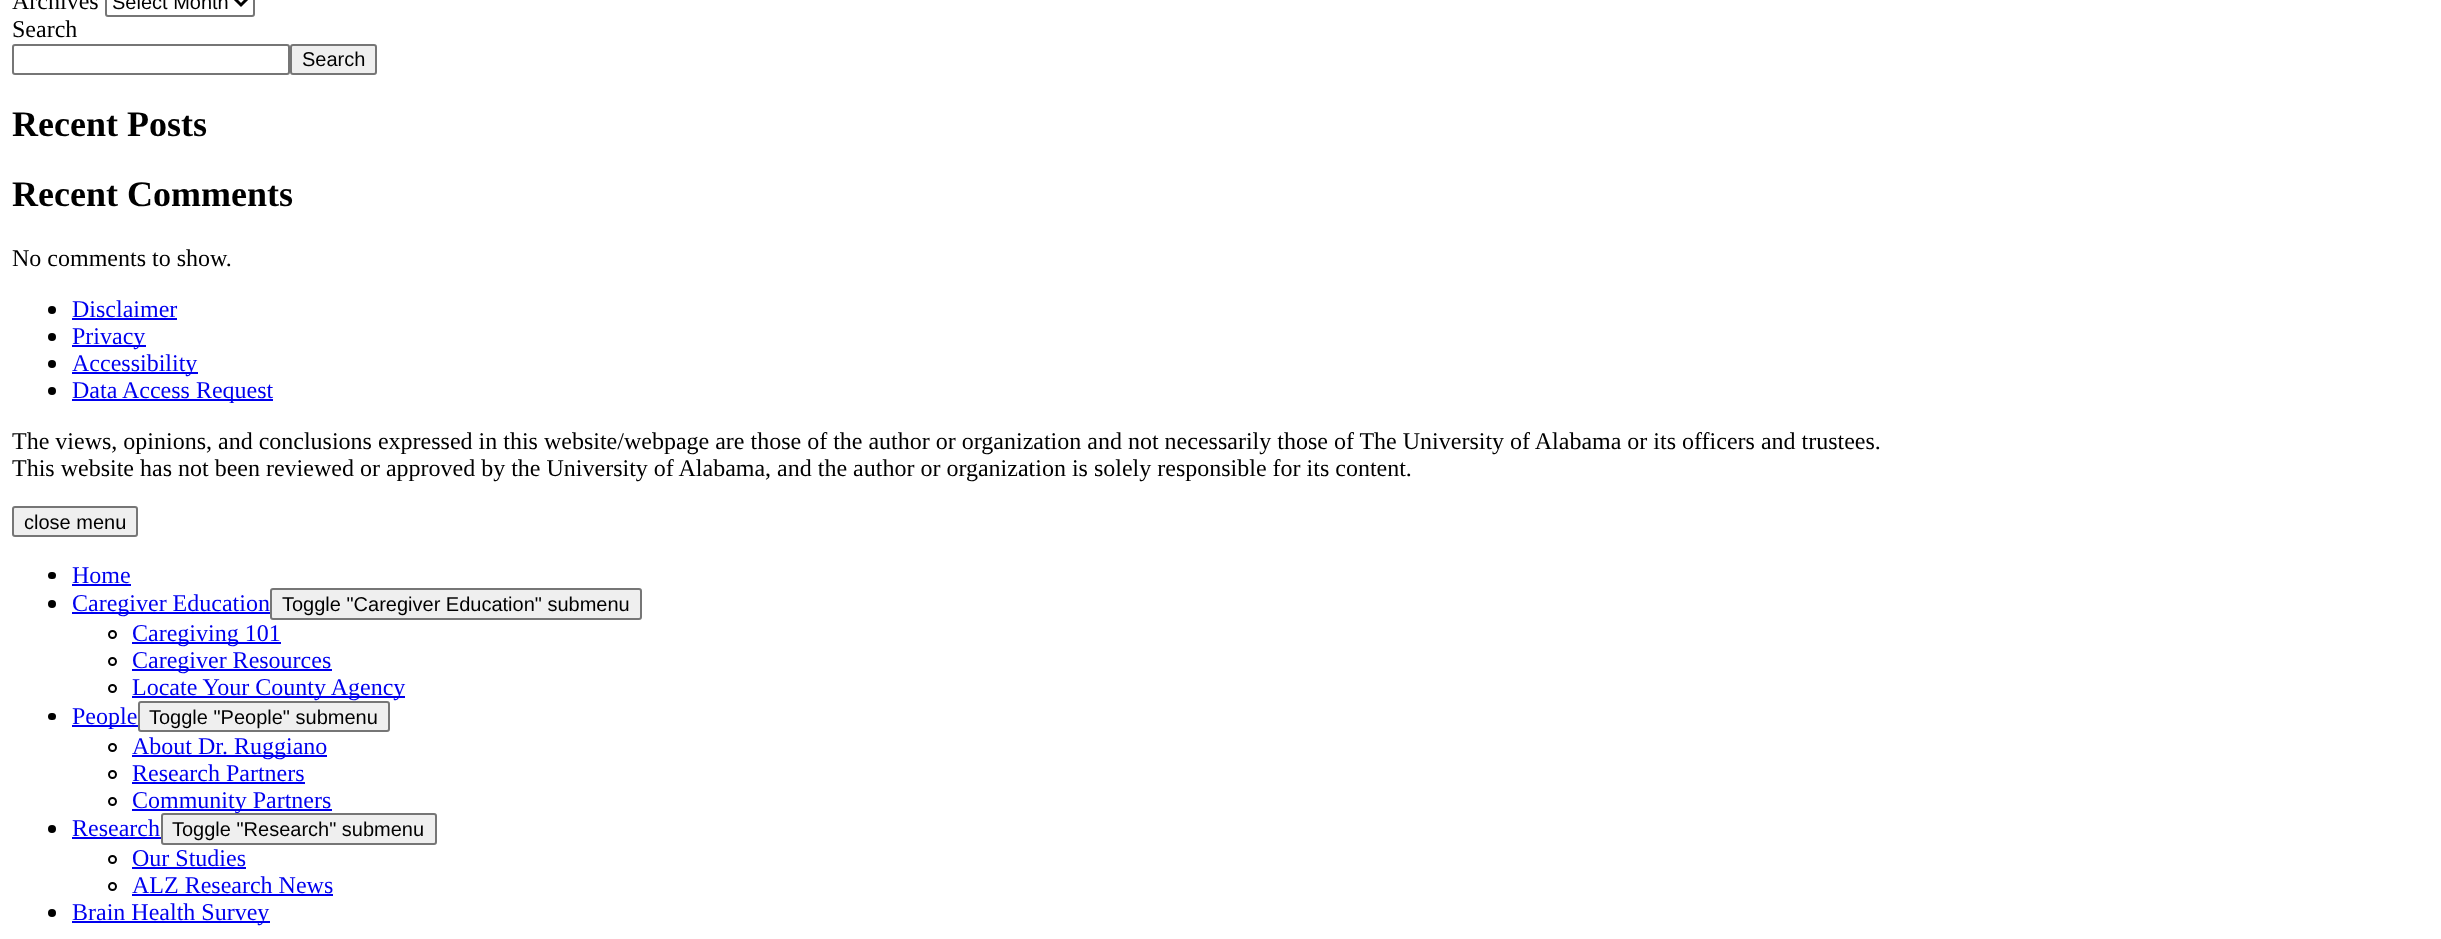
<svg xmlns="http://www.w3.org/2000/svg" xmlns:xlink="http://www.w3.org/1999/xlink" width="2441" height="939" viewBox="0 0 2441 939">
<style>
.cls-1{font:24px Liberation Serif;fill:#000000}
.cls-2{font:20px Liberation Sans;fill:#000000}
.cls-3{font:bold 36px Liberation Serif;fill:#000000}
.cls-4{font:24px Liberation Serif;fill:#0000ee}
</style>
<rect width="100%" height="100%" fill="#ffffff"/>
<rect fill="none" stroke="#767676" stroke-width="2" x="106" y="-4" width="148" height="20" rx="2"/>
<path fill="none" stroke="#000000" stroke-width="3" d="M235-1L241 5L247-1"/>
<rect fill="none" stroke="#767676" stroke-width="2" x="13" y="45" width="276" height="29" rx="2"/>
<rect fill="#efefef" stroke="#767676" stroke-width="2" x="291" y="45" width="85" height="29" rx="2"/>
<circle fill="#000000" cx="52" cy="310" r="4"/>
<rect fill="#0000ee" x="72" y="318" width="105" height="2"/>
<circle fill="#000000" cx="52" cy="337" r="4"/>
<rect fill="#0000ee" x="72" y="345" width="74" height="2"/>
<circle fill="#000000" cx="52" cy="364" r="4"/>
<rect fill="#0000ee" x="72" y="372" width="126" height="2"/>
<circle fill="#000000" cx="52" cy="391" r="4"/>
<rect fill="#0000ee" x="72" y="399" width="201" height="2"/>
<rect fill="#efefef" stroke="#767676" stroke-width="2" x="13" y="507" width="124" height="29" rx="2"/>
<rect fill="#000000" x="48" y="572" width="8" height="7" rx="3.5"/>
<rect fill="#0000ee" x="72" y="584" width="59" height="2"/>
<circle fill="#000000" cx="52" cy="604" r="4"/>
<rect fill="#0000ee" x="72" y="612" width="198" height="2"/>
<rect fill="#efefef" stroke="#767676" stroke-width="2" x="271" y="589" width="370" height="30" rx="2"/>
<circle fill="none" stroke="#000000" stroke-width="2" cx="112.5" cy="634.5" r="3.5"/>
<rect fill="#0000ee" x="132" y="642" width="149" height="2"/>
<circle fill="none" stroke="#000000" stroke-width="2" cx="112.5" cy="661.5" r="3.5"/>
<rect fill="#0000ee" x="132" y="669" width="200" height="2"/>
<circle fill="none" stroke="#000000" stroke-width="2" cx="112.5" cy="688.5" r="3.5"/>
<rect fill="#0000ee" x="132" y="696" width="273" height="2"/>
<rect fill="#000000" x="48" y="713" width="8" height="7" rx="3.5"/>
<rect fill="#0000ee" x="72" y="725" width="66" height="2"/>
<rect fill="#efefef" stroke="#767676" stroke-width="2" x="139" y="702" width="250" height="29" rx="2"/>
<circle fill="none" stroke="#000000" stroke-width="2" cx="112.5" cy="747.5" r="3.5"/>
<rect fill="#0000ee" x="132" y="755" width="195" height="2"/>
<circle fill="none" stroke="#000000" stroke-width="2" cx="112.5" cy="774.5" r="3.5"/>
<rect fill="#0000ee" x="132" y="782" width="173" height="2"/>
<circle fill="none" stroke="#000000" stroke-width="2" cx="112.5" cy="801.5" r="3.5"/>
<rect fill="#0000ee" x="132" y="809" width="200" height="2"/>
<circle fill="#000000" cx="52" cy="829" r="4"/>
<rect fill="#0000ee" x="72" y="837" width="89" height="2"/>
<circle fill="none" stroke="#000000" stroke-width="2" cx="112.5" cy="859.5" r="3.5"/>
<rect fill="#0000ee" x="132" y="867" width="114" height="2"/>
<circle fill="none" stroke="#000000" stroke-width="2" cx="112.5" cy="886.5" r="3.5"/>
<rect fill="#0000ee" x="132" y="894" width="201" height="2"/>
<circle fill="#000000" cx="52" cy="913" r="4"/>
<rect fill="#0000ee" x="72" y="921" width="198" height="2"/>
<text class="cls-1" x="12" y="9">Archives</text>
<text class="cls-2" x="112" y="9">Select Month</text>
<text class="cls-1" x="12" y="37">Search</text>
<text class="cls-2" x="302" y="66">Search</text>
<text class="cls-3"><tspan x="12" y="136">Recent Posts</tspan><tspan x="12" y="206">Recent Comments</tspan></text>
<text class="cls-1" x="12" y="266">No comments to show.</text>
<text class="cls-4"><tspan x="72" y="317">Disclaimer</tspan><tspan x="72" y="344">Privacy</tspan><tspan x="72" y="371">Accessibility</tspan><tspan x="72" y="398">Data Access Request</tspan></text>
<text class="cls-1"><tspan x="12" y="449">The views, opinions, and conclusions expressed in this website/webpage are those of the author or organization and not necessarily those of The University of Alabama or its officers and trustees.</tspan><tspan x="12" y="476">This website has not been reviewed or approved by the University of Alabama, and the author or organization is solely responsible for its content.</tspan></text>
<text class="cls-2" x="24" y="529">close menu</text>
<text class="cls-4"><tspan x="72" y="583">Home</tspan><tspan x="72" y="611">Caregiver Education</tspan></text>
<text class="cls-2" x="282" y="611">Toggle "Caregiver Education" submenu</text>
<text class="cls-4"><tspan x="132" y="641">Caregiving 101</tspan><tspan x="132" y="668">Caregiver Resources</tspan><tspan x="132" y="695">Locate Your County Agency</tspan></text>
<text class="cls-4" x="72" y="724">People</text>
<text class="cls-2" x="149" y="724">Toggle "People" submenu</text>
<text class="cls-4"><tspan x="132" y="754">About Dr. Ruggiano</tspan><tspan x="132" y="781">Research Partners</tspan><tspan x="132" y="808">Community Partners</tspan></text>
<text class="cls-4" x="72" y="836">Research</text>
<rect fill="#efefef" stroke="#767676" stroke-width="2" x="162" y="814" width="274" height="30" rx="2"/>
<text class="cls-2" x="172" y="836">Toggle "Research" submenu</text>
<text class="cls-4"><tspan x="132" y="866">Our Studies</tspan><tspan x="132" y="893">ALZ Research News</tspan></text>
<text class="cls-4" x="72" y="920">Brain Health Survey</text>
</svg>
